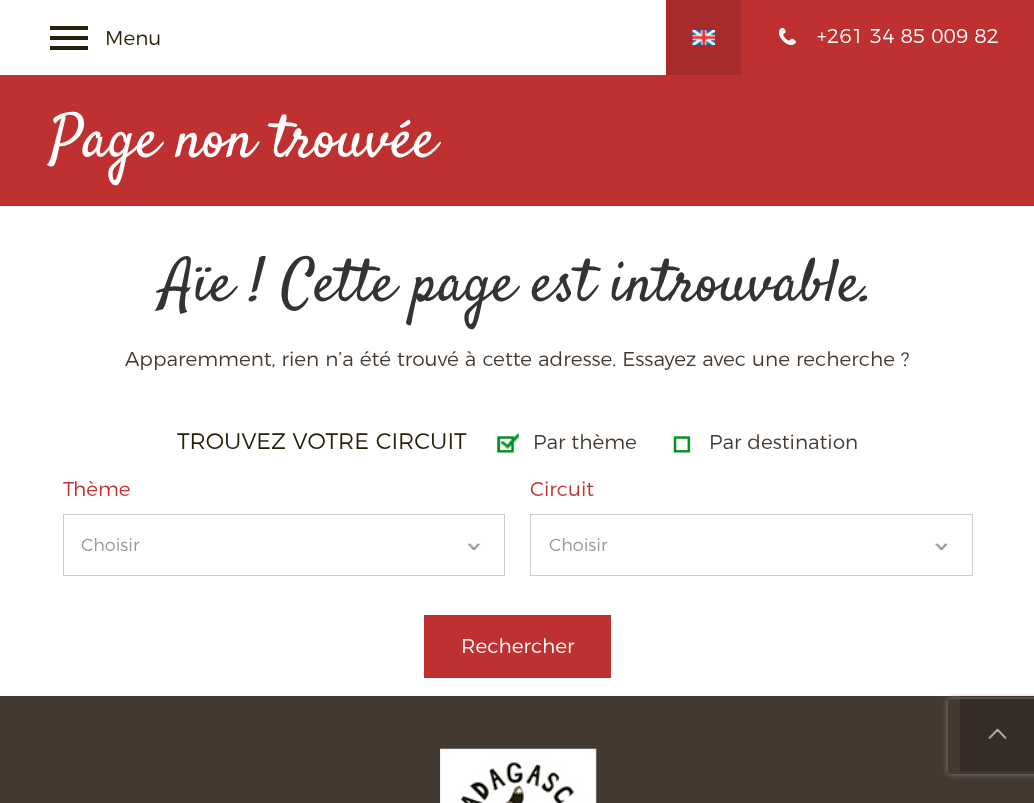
<svg xmlns="http://www.w3.org/2000/svg" xmlns:xlink="http://www.w3.org/1999/xlink" width="1034" height="803" viewBox="0 0 1034 803">
<style>
.cls-1{font:300 20px Montserrat;fill:#262008}
.cls-2{font:300 20px Montserrat;fill:#ffffff}
.cls-3{font:60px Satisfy;fill:#ffffff}
.cls-4{font:60px Satisfy;fill:#333333}
.cls-5{font:300 20px Montserrat;fill:#433930}
.cls-6{font:300 22.5px Montserrat;fill:#262008}
.cls-7{font:300 20px Montserrat;fill:#bf3130}
.cls-8{font:300 17.5px Montserrat;fill:#999999}
</style>
<defs>
<clipPath id="clip1"><path d="M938 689H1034V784H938ZM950.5 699H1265.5C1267 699 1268 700 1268 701.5V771.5C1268 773 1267 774 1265.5 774H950.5C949 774 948 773 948 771.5V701.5C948 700 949 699 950.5 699Z" clip-rule="evenodd"/></clipPath>
</defs>
<rect width="100%" height="100%" fill="#ffffff"/>
<rect fill="#262008" x="50" y="36" width="38" height="4"/>
<rect fill="#262008" x="50" y="26" width="38" height="4"/>
<rect fill="#262008" x="50" y="46" width="38" height="4"/>
<rect fill="#bf3130" x="741" y="0" width="293" height="75"/>
<rect fill="#a72b2b" x="666" y="0" width="75" height="75"/>
<image xlink:href="image0.png" x="692" y="30" width="23" height="15"/>
<image xlink:href="image1.png" x="779" y="28" width="17" height="17"/>
<rect fill="#bf3130" x="0" y="75" width="1034" height="131"/>
<image xlink:href="image2.png" x="497" y="436" width="1" height="17"/>
<image xlink:href="image3.png" x="497" y="433" width="22" height="20"/>
<image xlink:href="image4.png" x="673" y="436" width="18" height="17"/>
<image xlink:href="image5.png" x="467" y="543" width="14" height="7"/>
<rect fill="none" stroke="#cecece" x="63.5" y="514.5" width="441" height="61"/>
<image xlink:href="image6.png" x="935" y="542" width="13" height="8"/>
<rect fill="none" stroke="#cecece" x="530.5" y="514.5" width="442" height="61"/>
<rect fill="#bf3130" x="424" y="615" width="187" height="63"/>
<rect fill="#433930" x="0" y="696" width="1034" height="107"/>
<image xlink:href="image7.png" x="440" y="748" width="157" height="55"/>
<rect fill="#352d25" x="960" y="696" width="74" height="75"/>
<image xlink:href="image8.png" x="988" y="728" width="19" height="11"/>
<g clip-path="url(#clip1)">
<rect fill="#808080" filter="blur(3px)" x="948" y="699" width="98" height="75" rx="2.5"/>
</g>
<text class="cls-1" x="105" y="45">Menu</text>
<text class="cls-2" x="817" y="43">+261 34 85 009 82</text>
<text class="cls-3" x="50" y="156">Page non trouvée</text>
<text class="cls-4" x="161" y="300">Aïe ! Cette page est introuvable.</text>
<text class="cls-5" x="125" y="366">Apparemment, rien n’a été trouvé à cette adresse. Essayez avec une recherche ?</text>
<text class="cls-6" x="177" y="449">TROUVEZ VOTRE CIRCUIT</text>
<text class="cls-5" x="533" y="449">Par thème</text>
<text class="cls-5" x="709" y="449">Par destination</text>
<text class="cls-7" x="63" y="496">Thème</text>
<text class="cls-8" x="81" y="551">Choisir</text>
<text class="cls-7" x="530" y="496">Circuit</text>
<text class="cls-8" x="549" y="551">Choisir</text>
<text class="cls-2" x="461" y="653">Rechercher</text>
</svg>
